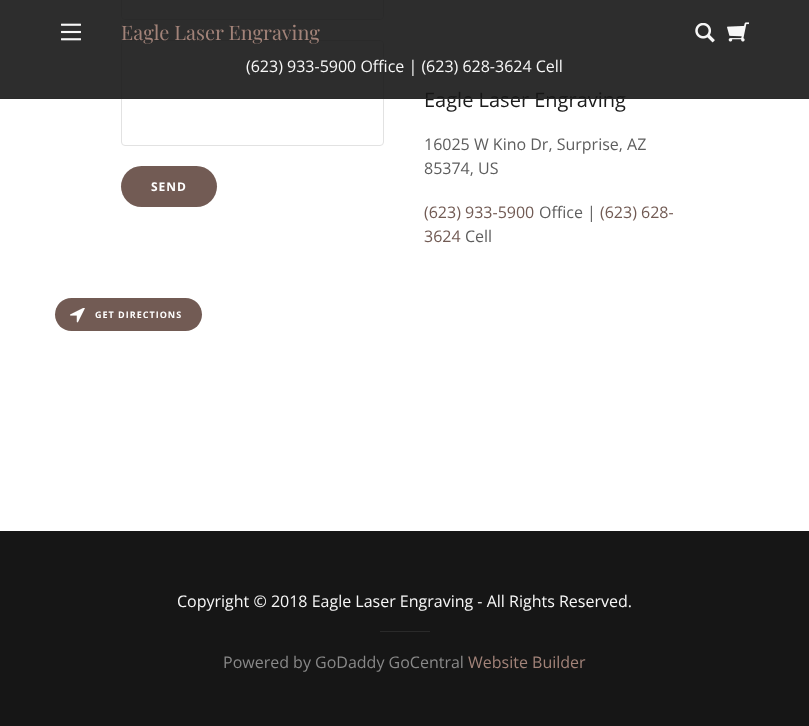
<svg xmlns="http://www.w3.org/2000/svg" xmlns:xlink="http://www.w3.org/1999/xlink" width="809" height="726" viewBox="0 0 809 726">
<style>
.cls-1{font:bold 12px Open Sans;letter-spacing:1px;fill:#ffffff}
.cls-2{font:20px Open Sans;fill:#1b1b1b}
.cls-3{font:16px Open Sans;fill:#f7f7f7}
.cls-4{font:20px Playfair Display;fill:#a28379}
.cls-5{font:16px Open Sans;fill:#5e5e5e}
.cls-6{font:16px Open Sans;fill:#725b54}
.cls-7{font:bold 9px Open Sans;letter-spacing:1px;fill:#ffffff}
.cls-8{font:16px Open Sans;fill:#898989}
.cls-9{font:16px Open Sans;fill:#a28379}
</style>
<rect width="100%" height="100%" fill="#161616"/>
<rect fill="#ffffff" x="0" y="0" width="809" height="531"/>
<rect fill="none" stroke="#e2e2e2" x="121.5" y="-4.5" width="262" height="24" rx="3.5"/>
<rect fill="none" stroke="#e2e2e2" x="121.5" y="40.5" width="262" height="105" rx="3.5"/>
<rect fill="#725b54" x="121" y="166" width="96" height="41" rx="20.5"/>
<rect fill="#725b54" x="55" y="298" width="147" height="33" rx="16.5"/>
<image xlink:href="image3.png" x="70" y="308" width="15" height="15"/>
<rect fill="#2a2a2a" x="380" y="631" width="50" height="1"/>
<text class="cls-1" x="151" y="191">SEND</text>
<text class="cls-2" x="424" y="107">Eagle Laser Engraving</text>
<rect fill="#161616" fill-opacity="0.9" x="0" y="0" width="809" height="98"/>
<image xlink:href="image1.png" x="695" y="23" width="20" height="20"/>
<rect fill="#2a2a2a" x="0" y="98" width="809" height="1"/>
<image xlink:href="image2.png" x="727" y="22" width="22" height="20"/>
<image xlink:href="image0.png" x="61" y="23" width="20" height="18"/>
<text class="cls-3" x="246" y="72">(623) 933-5900 Office | (623) 628-3624 Cell</text>
<text class="cls-4" x="121" y="40">Eagle Laser Engraving</text>
<text class="cls-5"><tspan x="424" y="150">16025 W Kino Dr, Surprise, AZ</tspan><tspan x="424" y="174">85374, US</tspan></text>
<text class="cls-6" x="424" y="218">(623) 933-5900</text>
<text class="cls-5" x="539" y="218">Office |</text>
<text class="cls-6" x="600" y="218">(623) 628-</text>
<text class="cls-6" x="424" y="242">3624</text>
<text class="cls-5" x="465" y="242">Cell</text>
<text class="cls-7" x="95" y="318">GET DIRECTIONS</text>
<text class="cls-3" x="177" y="607">Copyright © 2018 Eagle Laser Engraving - All Rights Reserved.</text>
<text class="cls-8" x="223" y="668">Powered by GoDaddy GoCentral</text>
<text class="cls-9" x="468" y="668">Website Builder</text>
</svg>
